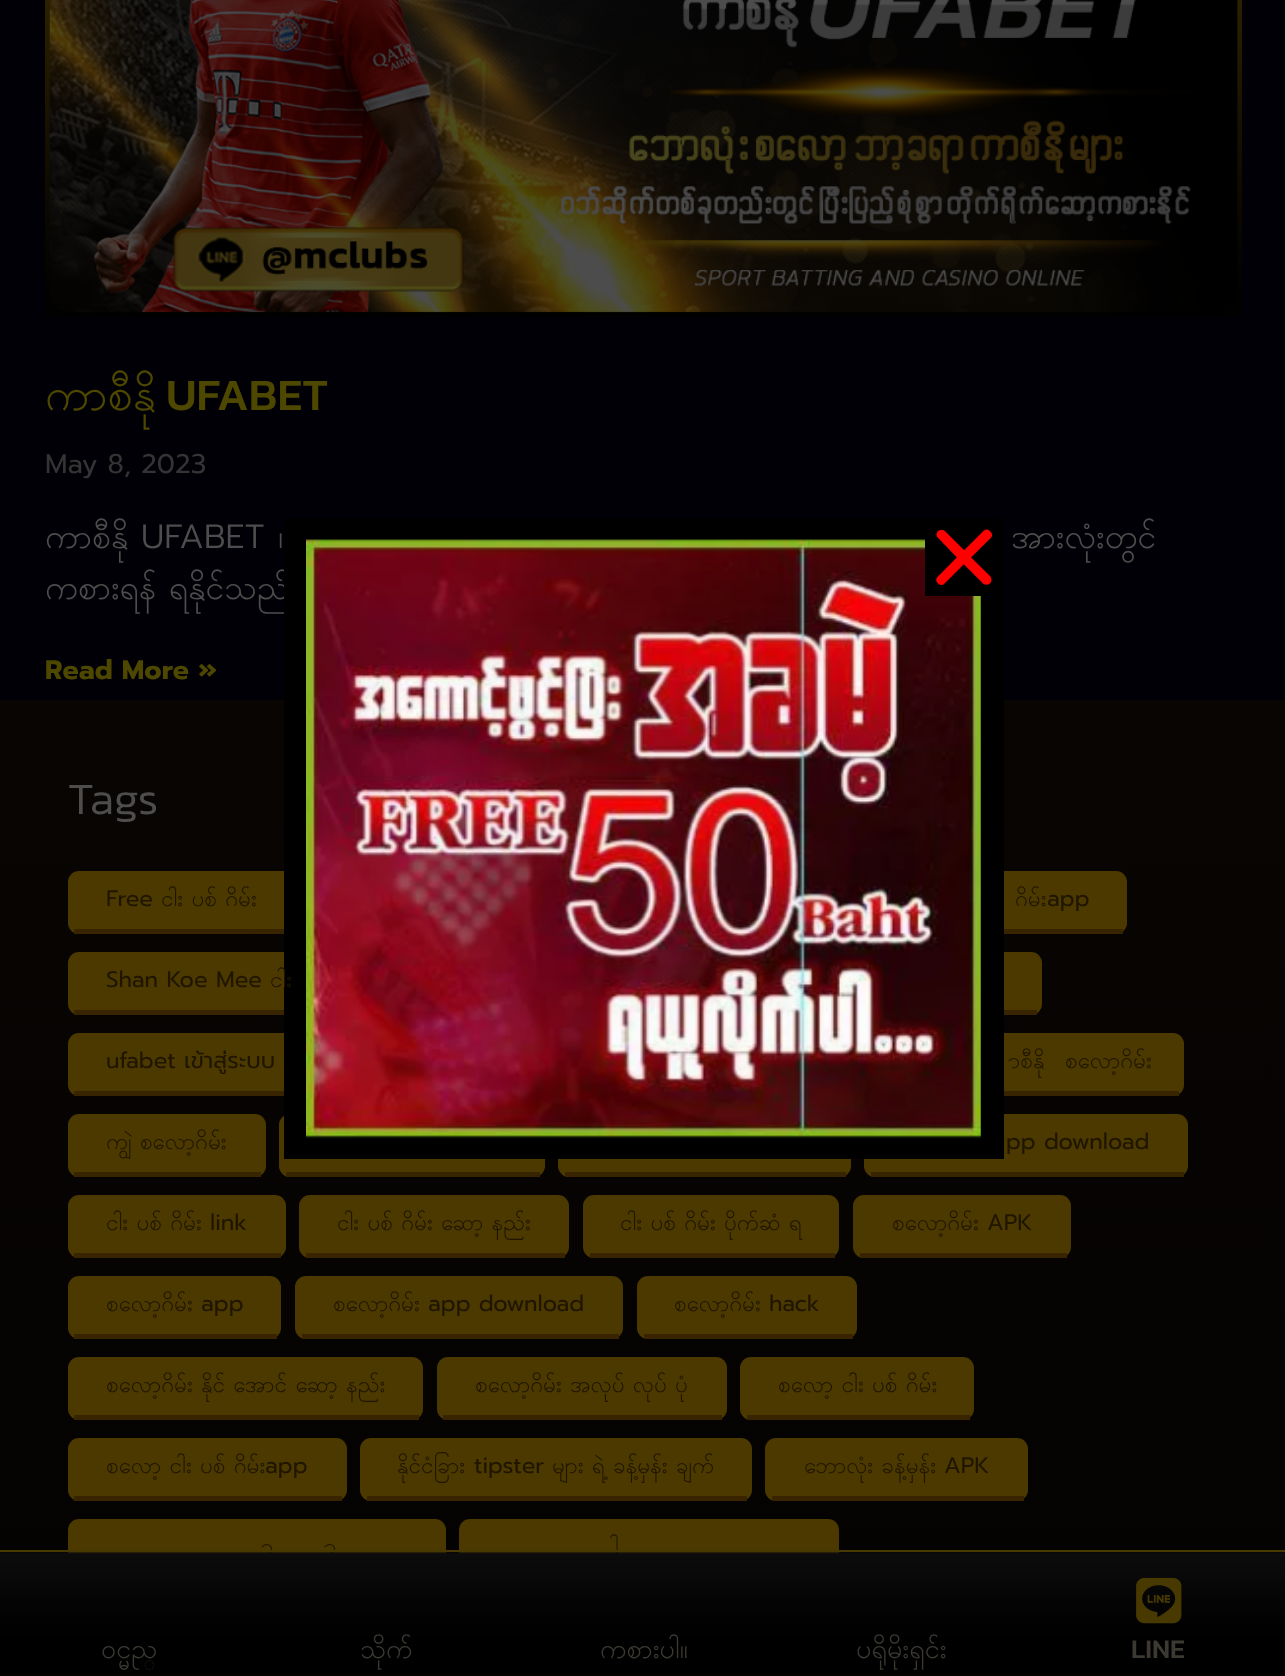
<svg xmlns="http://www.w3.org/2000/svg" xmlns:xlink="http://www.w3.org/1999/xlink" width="1285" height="1676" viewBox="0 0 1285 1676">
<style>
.cls-1{font:45px Padauk;fill:#4d4700}
.cls-2{font:500 45px Kanit;fill:#4d4700}
.cls-3{font:27px Prompt;fill:#343434}
.cls-4{font:33.75px Padauk;fill:#4d4d4d}
.cls-5{font:300 33.75px Prompt;fill:#4d4d4d}
.cls-6{font:bold 27px Prompt;fill:#4d4700}
.cls-7{font:300 45px Kanit;fill:#4d4d4d}
.cls-8{font:22.5px Prompt;fill:#201600}
.cls-9{font:22.5px Padauk;fill:#201600}
.cls-10{font:27px Padauk;fill:#3b3932}
.cls-11{font:500 27px Kanit;fill:#3b3932}
</style>
<defs>
<linearGradient id="g1" gradientUnits="userSpaceOnUse" x1="643" y1="700" x2="644" y2="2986"><stop offset="0" stop-color="#080503"/><stop offset="1" stop-color="#000000"/></linearGradient>
<clipPath id="clip1"><rect x="45" y="0" width="1197" height="700"/></clipPath>
</defs>
<rect width="100%" height="100%" fill="#000006"/>
<image xlink:href="image0.png" x="45" y="0" width="1197" height="317"/>
<rect fill="url(#g1)" x="0" y="700" width="1285" height="976"/>
<rect fill="#4c3900" x="68" y="871" width="227" height="63" rx="11"/>
<rect fill="#392400" x="74" y="929" width="216" height="5"/>
<rect fill="#4c3900" x="839" y="871" width="288" height="63" rx="11"/>
<rect fill="#392400" x="1004" y="929" width="119" height="5"/>
<rect fill="#4c3900" x="68" y="952" width="337" height="63" rx="11"/>
<rect fill="#392400" x="74" y="1010" width="210" height="5"/>
<rect fill="#4c3900" x="855" y="952" width="187" height="63" rx="11"/>
<rect fill="#392400" x="1004" y="1010" width="33" height="5"/>
<rect fill="#4c3900" x="68" y="1033" width="245" height="63" rx="11"/>
<rect fill="#392400" x="74" y="1091" width="210" height="5"/>
<rect fill="#4c3900" x="956" y="1033" width="228" height="63" rx="11"/>
<rect fill="#392400" x="1004" y="1091" width="175" height="5"/>
<rect fill="#4c3900" x="68" y="1114" width="198" height="63" rx="11"/>
<rect fill="#392400" x="74" y="1172" width="187" height="5"/>
<rect fill="#4c3900" x="279" y="1114" width="266" height="63" rx="11"/>
<rect fill="#392400" x="286" y="1172" width="254" height="5"/>
<rect fill="#4c3900" x="558" y="1114" width="293" height="63" rx="11"/>
<rect fill="#392400" x="565" y="1172" width="281" height="5"/>
<rect fill="#4c3900" x="864" y="1114" width="324" height="63" rx="11"/>
<rect fill="#392400" x="871" y="1172" width="313" height="5"/>
<rect fill="#4c3900" x="68" y="1195" width="218" height="63" rx="11"/>
<rect fill="#392400" x="74" y="1253" width="207" height="5"/>
<rect fill="#4c3900" x="299" y="1195" width="270" height="63" rx="11"/>
<rect fill="#392400" x="306" y="1253" width="259" height="5"/>
<rect fill="#4c3900" x="583" y="1195" width="256" height="63" rx="11"/>
<rect fill="#392400" x="590" y="1253" width="245" height="5"/>
<rect fill="#4c3900" x="853" y="1195" width="218" height="63" rx="11"/>
<rect fill="#392400" x="860" y="1253" width="207" height="5"/>
<rect fill="#4c3900" x="68" y="1276" width="213" height="63" rx="11"/>
<rect fill="#392400" x="74" y="1334" width="203" height="5"/>
<rect fill="#4c3900" x="295" y="1276" width="328" height="63" rx="11"/>
<rect fill="#392400" x="302" y="1334" width="317" height="5"/>
<rect fill="#4c3900" x="637" y="1276" width="220" height="63" rx="11"/>
<rect fill="#392400" x="644" y="1334" width="209" height="5"/>
<rect fill="#4c3900" x="68" y="1357" width="355" height="63" rx="11"/>
<rect fill="#392400" x="74" y="1415" width="345" height="5"/>
<rect fill="#4c3900" x="437" y="1357" width="290" height="63" rx="11"/>
<rect fill="#392400" x="443" y="1415" width="279" height="5"/>
<rect fill="#4c3900" x="740" y="1357" width="234" height="63" rx="11"/>
<rect fill="#392400" x="747" y="1415" width="223" height="5"/>
<rect fill="#4c3900" x="68" y="1438" width="279" height="63" rx="11"/>
<rect fill="#392400" x="74" y="1496" width="268" height="5"/>
<rect fill="#4c3900" x="360" y="1438" width="392" height="63" rx="11"/>
<rect fill="#392400" x="367" y="1496" width="380" height="5"/>
<rect fill="#4c3900" x="765" y="1438" width="263" height="63" rx="11"/>
<rect fill="#392400" x="772" y="1496" width="252" height="5"/>
<rect fill="#4c3900" x="68" y="1519" width="378" height="63" rx="11"/>
<rect fill="#4c3900" x="459" y="1519" width="380" height="63" rx="11"/>
<g clip-path="url(#clip1)">
<text class="cls-1" x="45" y="410">ကာစီနို</text>
</g>
<text class="cls-2" x="166" y="410">UFABET</text>
<text class="cls-3" x="45" y="473">May 8, 2023</text>
<g clip-path="url(#clip1)">
<text class="cls-4" x="45" y="548">ကာစီနို</text>
</g>
<text class="cls-5" x="141" y="548">UFABET</text>
<text class="cls-4" x="278" y="548">၊</text>
<text class="cls-4" x="1011" y="548">အားလုံးတွင်</text>
<text class="cls-4" x="45" y="599">ကစားရန် ရနိုင်သည်</text>
<text class="cls-6" x="45" y="679">Read More »</text>
<rect fill="#000000" x="284" y="518" width="720" height="641"/>
<image xlink:href="image2.png" x="306" y="539" width="675" height="600"/>
<rect fill="#000000" x="925" y="539" width="56" height="57"/>
<image xlink:href="image1.png" x="936" y="529" width="57" height="56"/>
<text class="cls-7" x="68" y="814">Tags</text>
<text class="cls-8" x="106" y="906">Free</text>
<text class="cls-9" x="161" y="906">ငါး ပစ် ဂိမ်း</text>
<text class="cls-9" x="1015" y="906">ဂိမ်း</text>
<text class="cls-8" x="1047" y="906">app</text>
<text class="cls-8" x="106" y="987">Shan Koe Mee</text>
<text class="cls-9" x="270" y="987">ငါး</text>
<text class="cls-8" x="106" y="1068">ufabet เข้าสู่ระบบ</text>
<text class="cls-9" x="1011" y="1068">ာစီနို</text>
<text class="cls-9" x="1065" y="1068">စလော့ဂိမ်း</text>
<text class="cls-9" x="106" y="1149">ကျွဲ စလော့ဂိမ်း</text>
<text class="cls-8" x="1006" y="1149">pp download</text>
<text class="cls-9" x="106" y="1230">ငါး ပစ် ဂိမ်း</text>
<text class="cls-8" x="210" y="1230">link</text>
<text class="cls-9" x="337" y="1230">ငါး ပစ် ဂိမ်း ဆော့ နည်း</text>
<text class="cls-9" x="620" y="1230">ငါး ပစ် ဂိမ်း ပိုက်ဆံ ရ</text>
<text class="cls-9" x="892" y="1230">စလော့ဂိမ်း</text>
<text class="cls-8" x="987" y="1230">APK</text>
<text class="cls-9" x="106" y="1311">စလော့ဂိမ်း</text>
<text class="cls-8" x="201" y="1311">app</text>
<text class="cls-9" x="333" y="1311">စလော့ဂိမ်း</text>
<text class="cls-8" x="428" y="1311">app download</text>
<text class="cls-9" x="674" y="1311">စလော့ဂိမ်း</text>
<text class="cls-8" x="769" y="1311">hack</text>
<text class="cls-9" x="106" y="1392">စလော့ဂိမ်း နိုင် အောင် ဆော့ နည်း</text>
<text class="cls-9" x="475" y="1392">စလော့ဂိမ်း အလုပ် လုပ် ပုံ</text>
<text class="cls-9" x="778" y="1392">စလော့ ငါး ပစ် ဂိမ်း</text>
<text class="cls-9" x="106" y="1473">စလော့ ငါး ပစ် ဂိမ်း</text>
<text class="cls-8" x="265" y="1473">app</text>
<text class="cls-9" x="397" y="1473">နိုင်ငံခြား</text>
<text class="cls-8" x="474" y="1473">tipster</text>
<text class="cls-9" x="552" y="1473">များ ရဲ့ ခန့်မှန်း ချက်</text>
<text class="cls-9" x="804" y="1473">ဘောလုံး ခန့်မှန်း</text>
<text class="cls-8" x="944" y="1473">APK</text>
<text class="cls-9" x="264" y="1554">ာ</text>
<text class="cls-9" x="327" y="1554">ာ</text>
<text class="cls-9" x="615" y="1554">ါ</text>
<image xlink:href="image3.png" x="0" y="1552" width="1285" height="122"/>
<rect fill="#473900" x="0" y="1550" width="1285" height="2"/>
<text class="cls-10" x="101" y="1658">၀င္မည္</text>
<text class="cls-10" x="360" y="1658">သိုက်</text>
<text class="cls-10" x="600" y="1658">ကစားပါ။</text>
<text class="cls-10" x="856" y="1658">ပရိုမိုးရှင်း</text>
<image xlink:href="image4.png" x="1136" y="1577" width="46" height="47"/>
<text class="cls-11" x="1131" y="1658">LINE</text>
</svg>
